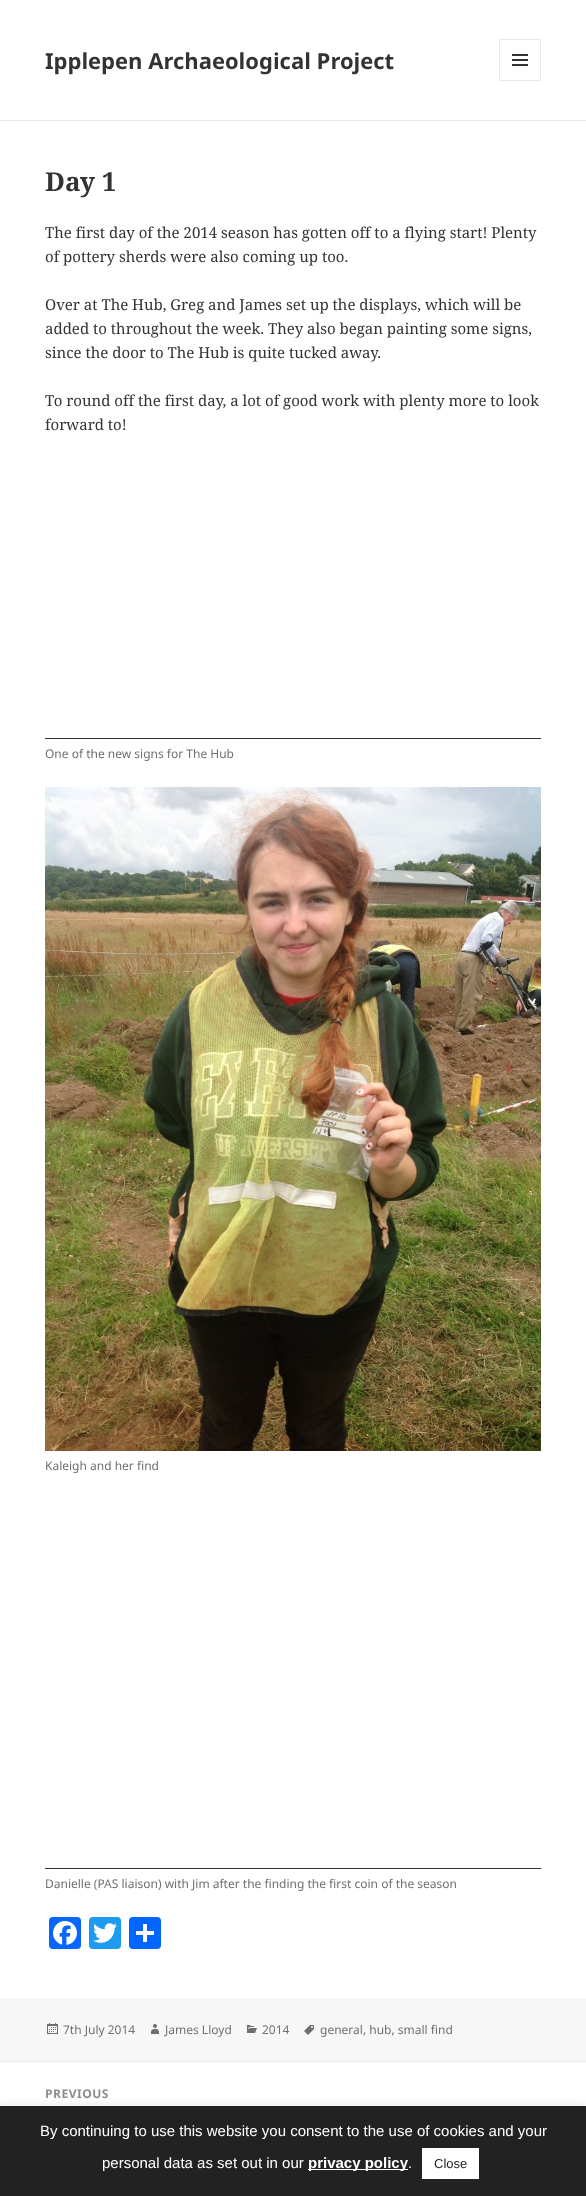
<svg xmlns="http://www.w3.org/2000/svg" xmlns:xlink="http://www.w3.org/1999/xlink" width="586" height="2196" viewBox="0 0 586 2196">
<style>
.cls-1{font:bold 22px Noto Sans;fill:#333333}
.cls-2{font:bold 26px Noto Serif;fill:#333333}
.cls-3{font:15px Noto Serif;fill:#333333}
.cls-4{font:12px Noto Sans;fill:#707070}
.cls-5{font:bold 12px Noto Sans;letter-spacing:0.5px;fill:#8d8d8d}
.cls-6{font:15px Liberation Sans;fill:#ffffff}
.cls-7{font:bold 15px Liberation Sans;fill:#ffffff}
.cls-8{font:13px Liberation Sans;fill:#222222}
</style>
<rect width="100%" height="100%" fill="#ffffff"/>
<rect fill="#ebebeb" x="0" y="120" width="586" height="1"/>
<rect fill="none" stroke="#ebebeb" x="499.5" y="39.5" width="41" height="41"/>
<image xlink:href="image0.png" x="512" y="54" width="16" height="12"/>
<rect fill="#333333" x="45" y="738" width="496" height="1"/>
<image xlink:href="image1.png" x="45" y="787" width="496" height="664"/>
<rect fill="#333333" x="45" y="1868" width="496" height="1"/>
<rect fill="#0866ff" x="49" y="1917" width="32" height="32" rx="4"/>
<image xlink:href="image2.png" x="53" y="1921" width="24" height="24"/>
<rect fill="#1d9bf0" x="89" y="1917" width="32" height="32" rx="4"/>
<image xlink:href="image3.png" x="93" y="1923" width="24" height="20"/>
<rect fill="#0166ff" x="129" y="1917" width="32" height="32" rx="4"/>
<rect fill="#ffffff" x="143" y="1924" width="4" height="18"/>
<rect fill="#ffffff" x="136" y="1931" width="18" height="4"/>
<rect fill="#f7f7f7" x="0" y="1998" width="586" height="63"/>
<image xlink:href="image4.png" x="47" y="2023" width="11" height="11"/>
<image xlink:href="image5.png" x="151" y="2024" width="8" height="10"/>
<image xlink:href="image6.png" x="247" y="2025" width="10" height="8"/>
<image xlink:href="image7.png" x="304" y="2025" width="10" height="10"/>
<rect fill="#ebebeb" x="0" y="2061" width="586" height="1"/>
<rect fill="#acabab" fill-opacity="0.3" filter="blur(5px)" x="0" y="2105" width="586" height="90"/>
<rect fill="#222222" x="0" y="2106" width="586" height="90"/>
<rect fill="#ffffff" x="308" y="2169" width="100" height="1"/>
<rect fill="#ffffff" x="422" y="2148" width="57" height="31"/>
<text class="cls-1" x="45" y="69">Ipplepen Archaeological Project</text>
<text class="cls-2" x="45" y="191">Day 1</text>
<text class="cls-3"><tspan x="45" y="238">The first day of the 2014 season has gotten off to a flying start! Plenty</tspan><tspan x="45" y="262">of pottery sherds were also coming up too.</tspan></text>
<text class="cls-3"><tspan x="45" y="310">Over at The Hub, Greg and James set up the displays, which will be</tspan><tspan x="45" y="334">added to throughout the week. They also began painting some signs,</tspan><tspan x="45" y="358">since the door to The Hub is quite tucked away.</tspan></text>
<text class="cls-3"><tspan x="45" y="406">To round off the first day, a lot of good work with plenty more to look</tspan><tspan x="45" y="430">forward to!</tspan></text>
<text class="cls-4" x="45" y="758">One of the new signs for The Hub</text>
<text class="cls-4" x="45" y="1470">Kaleigh and her find</text>
<text class="cls-4" x="45" y="1888">Danielle (PAS liaison) with Jim after the finding the first coin of the season</text>
<text class="cls-4" x="63" y="2034">7th July 2014</text>
<text class="cls-4" x="165" y="2034">James Lloyd</text>
<text class="cls-4" x="262" y="2034">2014</text>
<text class="cls-4" x="320" y="2034">general, hub, small find</text>
<text class="cls-5" x="45" y="2098">PREVIOUS</text>
<text class="cls-6" x="40" y="2136">By continuing to use this website you consent to the use of cookies and your</text>
<text class="cls-6" x="102" y="2168">personal data as set out in our</text>
<text class="cls-7" x="308" y="2168">privacy policy</text>
<text class="cls-6" x="408" y="2168">.</text>
<text class="cls-8" x="434" y="2168">Close</text>
</svg>
